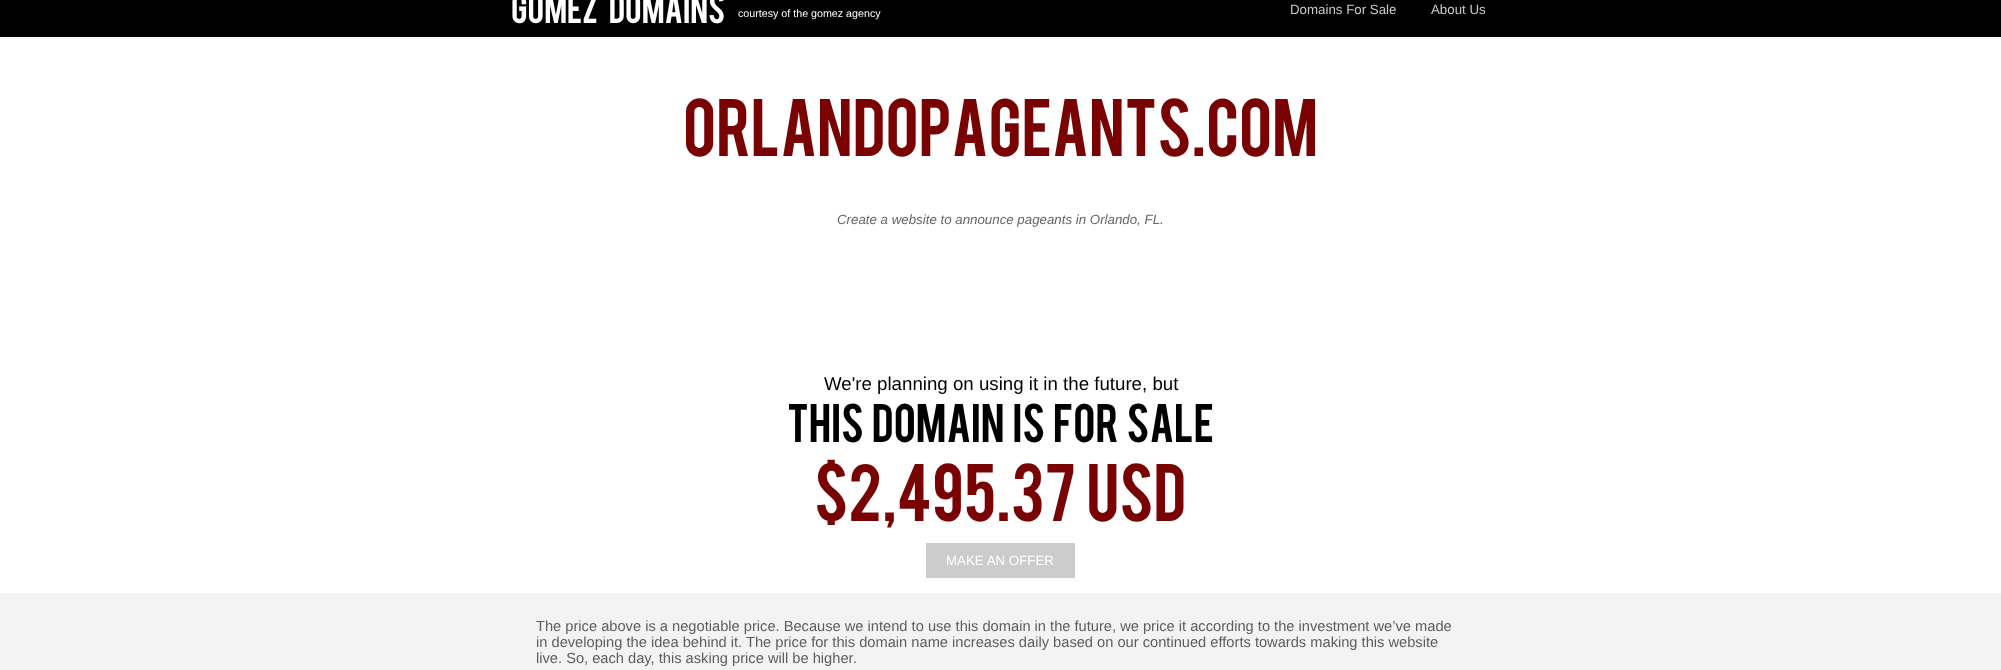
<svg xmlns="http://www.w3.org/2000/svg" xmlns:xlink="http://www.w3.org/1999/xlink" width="2001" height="670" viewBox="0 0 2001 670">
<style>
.cls-1{font:32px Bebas;fill:#ffffff}
.cls-2{font:10.7px Liberation Sans;fill:#ffffff}
.cls-3{font:13.3px Liberation Sans;fill:#cacaca}
.cls-4{font:64px Bebas;fill:#790202}
.cls-5{font:italic 13.3px Liberation Sans;fill:#666666}
.cls-6{font:18.7px Liberation Sans;fill:#000000}
.cls-7{font:42.75px Bebas;fill:#000000}
.cls-8{font:13.3px Liberation Sans;fill:#ffffff}
.cls-9{font:14.67px Liberation Sans;fill:#5d5d5d}
</style>
<rect width="100%" height="100%" fill="#000000"/>
<rect fill="#ffffff" x="0" y="37" width="2001" height="556"/>
<rect fill="#cccccc" x="926" y="543" width="149" height="35"/>
<rect fill="#f3f3f3" x="0" y="593" width="2001" height="77"/>
<text class="cls-1" x="511" y="23" word-spacing="8">Gomez Domains</text>
<text class="cls-2" x="738" y="17">courtesy of the gomez agency</text>
<text class="cls-3" x="1290" y="14">Domains For Sale</text>
<text class="cls-3" x="1431" y="14">About Us</text>
<text class="cls-4" x="683" y="156">orlandopageants.com</text>
<text class="cls-5" x="837" y="224">Create a website to announce pageants in Orlando, FL.</text>
<text class="cls-6" x="824" y="390">We're planning on using it in the future, but</text>
<text class="cls-7" x="787" y="442" word-spacing="4">This Domain Is For Sale</text>
<text class="cls-4" x="814" y="521" word-spacing="4">$2,495.37 USD</text>
<text class="cls-8" x="946" y="565">MAKE AN OFFER</text>
<text class="cls-9"><tspan x="536" y="631">The price above is a negotiable price. Because we intend to use this domain in the future, we price it according to the investment we’ve made</tspan><tspan x="536" y="647">in developing the idea behind it. The price for this domain name increases daily based on our continued efforts towards making this website</tspan><tspan x="536" y="663">live. So, each day, this asking price will be higher.</tspan></text>
</svg>
